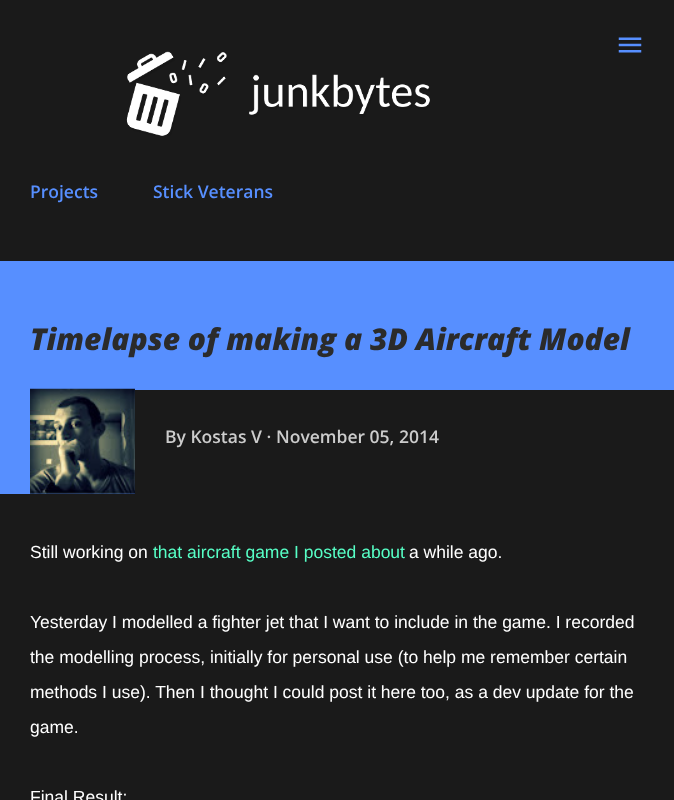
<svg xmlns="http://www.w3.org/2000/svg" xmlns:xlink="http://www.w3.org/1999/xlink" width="674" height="800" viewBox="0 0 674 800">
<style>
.cls-1{font:600 17.5px Open Sans;fill:#578fff}
.cls-2{font:italic 800 30px Open Sans;fill:#2b2b2b}
.cls-3{font:600 17.5px Open Sans;fill:#cccccc}
.cls-4{font:17.5px Liberation Sans;fill:#ffffff}
.cls-5{font:17.5px Liberation Sans;fill:#57ffc6}
</style>
<rect width="100%" height="100%" fill="#1a1a1a"/>
<image xlink:href="image0.png" x="618" y="37" width="24" height="16"/>
<image xlink:href="image1.png" x="126" y="51" width="304" height="85"/>
<rect fill="#578fff" x="0" y="261" width="674" height="129"/>
<rect fill="#578fff" x="0" y="390" width="135" height="104"/>
<image xlink:href="image2.png" x="30" y="388" width="105" height="106"/>
<text class="cls-1" x="30" y="198">Projects</text>
<text class="cls-1" x="153" y="198">Stick Veterans</text>
<text class="cls-2" x="30" y="350">Timelapse of making a 3D Aircraft Model</text>
<text class="cls-3" x="165" y="443">By Kostas V ·</text>
<text class="cls-3" x="276" y="443">November 05, 2014</text>
<text class="cls-4" x="30" y="558">Still working on</text>
<text class="cls-5" x="153" y="558">that aircraft game I posted about</text>
<text class="cls-4" x="409" y="558">a while ago.</text>
<text class="cls-4" x="30" y="628">Yesterday I modelled a fighter jet that I want to include in the game. I recorded</text>
<text class="cls-4" x="30" y="663">the modelling process, initially for personal use (to help me remember certain</text>
<text class="cls-4" x="30" y="698">methods I use). Then I thought I could post it here too, as a dev update for the</text>
<text class="cls-4" x="30" y="733">game.</text>
<text class="cls-4" x="30" y="803">Final Result:</text>
</svg>
